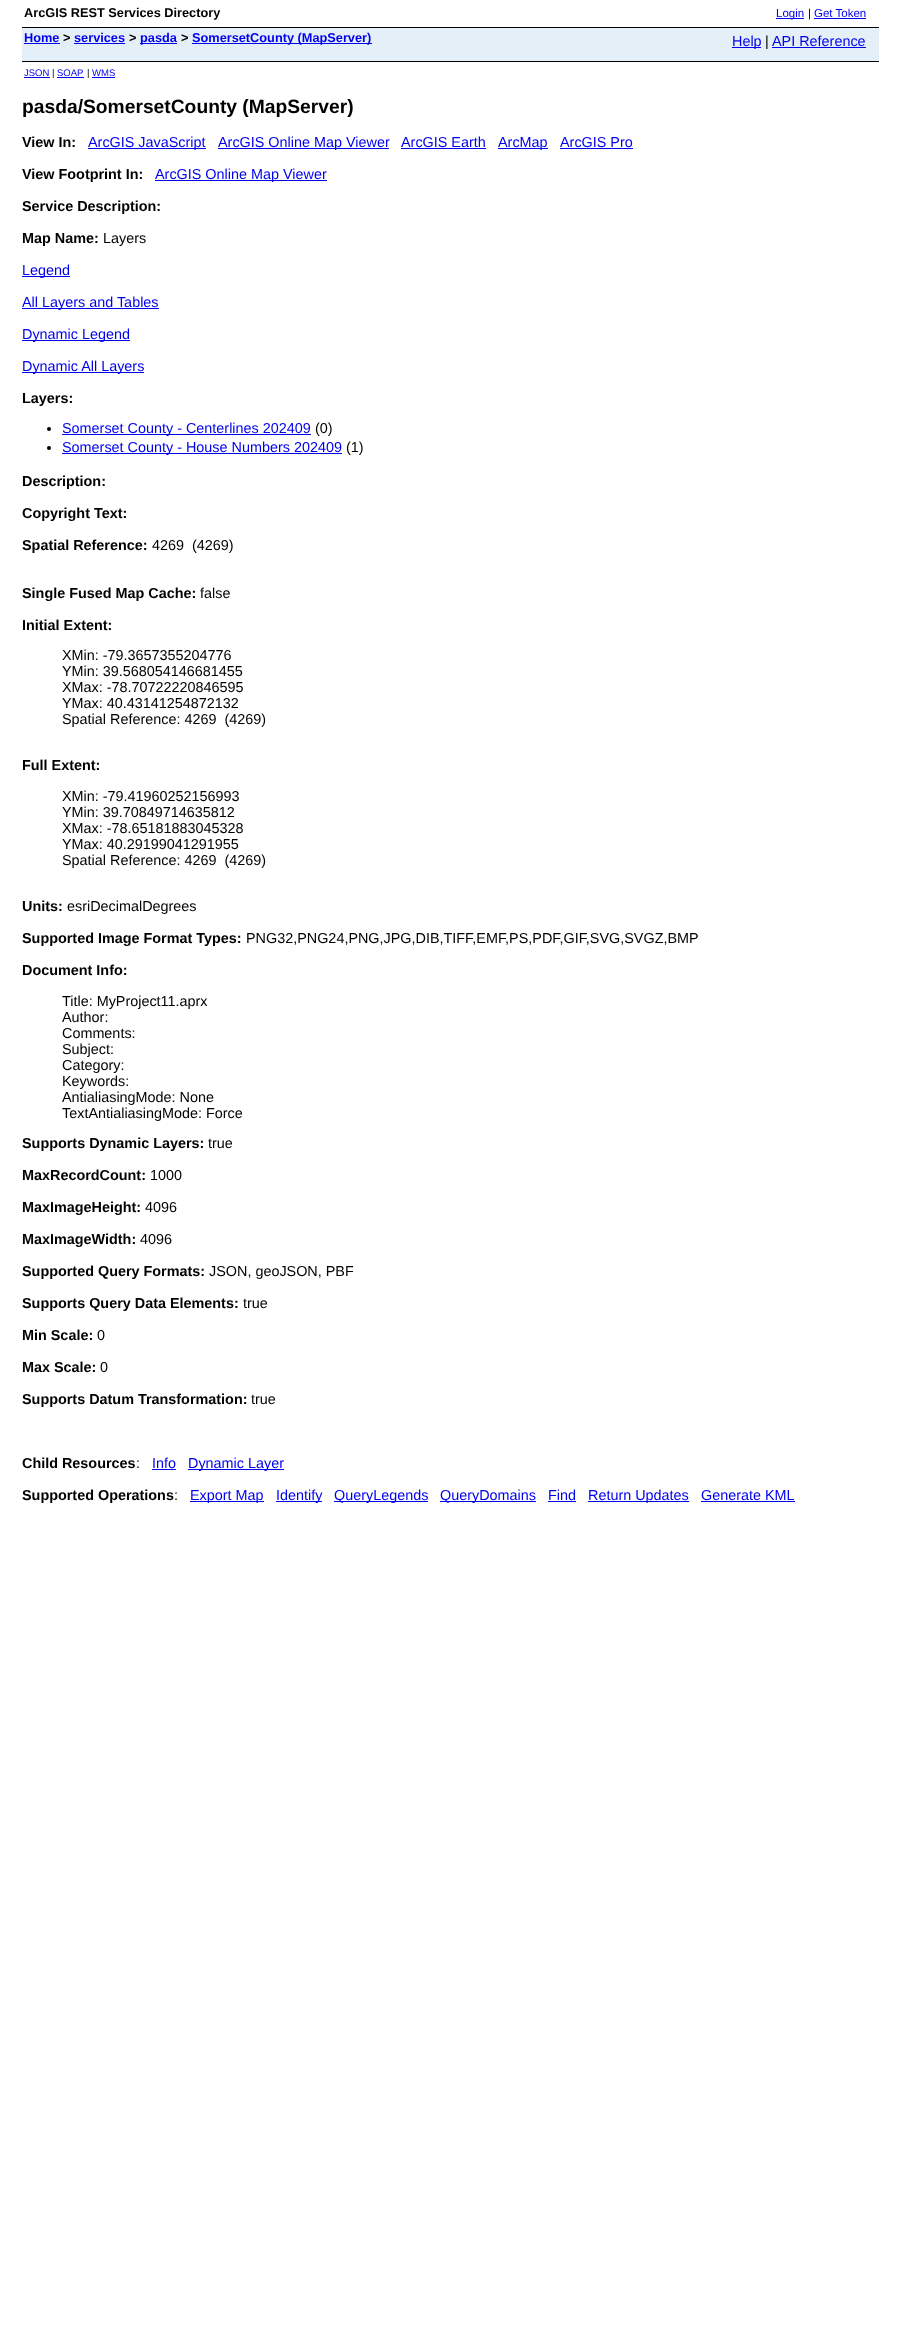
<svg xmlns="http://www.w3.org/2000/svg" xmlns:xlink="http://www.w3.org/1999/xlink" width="901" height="2348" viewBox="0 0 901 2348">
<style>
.cls-1{font:bold 12.75px Liberation Sans;fill:#000000}
.cls-2{font:11.5px Liberation Sans;fill:#0000ee}
.cls-3{font:11.5px Liberation Sans;fill:#000000}
.cls-4{font:bold 12.75px Liberation Sans;fill:#0000ee}
.cls-5{font:14.4px Liberation Sans;fill:#0000ee}
.cls-6{font:14.4px Liberation Sans;fill:#000000}
.cls-7{font:9.5px Liberation Sans;fill:#0000ee}
.cls-8{font:9.5px Liberation Sans;fill:#000000}
.cls-9{font:bold 19.25px Liberation Sans;fill:#000000}
.cls-10{font:bold 14.4px Liberation Sans;fill:#000000}
</style>
<rect width="100%" height="100%" fill="#ffffff"/>
<rect fill="#0000ee" x="776" y="18" width="28" height="1"/>
<rect fill="#0000ee" x="814" y="18" width="52" height="1"/>
<rect fill="#e5eff7" x="22" y="28" width="857" height="33"/>
<rect fill="#000000" x="22" y="27" width="857" height="1"/>
<rect fill="#000000" x="22" y="61" width="857" height="1"/>
<rect fill="#0000ee" x="24" y="43" width="36" height="1"/>
<rect fill="#0000ee" x="74" y="43" width="51" height="1"/>
<rect fill="#0000ee" x="140" y="43" width="37" height="1"/>
<rect fill="#0000ee" x="192" y="43" width="180" height="1"/>
<rect fill="#0000ee" x="732" y="47" width="29" height="1"/>
<rect fill="#0000ee" x="772" y="47" width="94" height="1"/>
<rect fill="#0000ee" x="24" y="77" width="26" height="1"/>
<rect fill="#0000ee" x="57" y="77" width="27" height="1"/>
<rect fill="#0000ee" x="92" y="77" width="23" height="1"/>
<rect fill="#0000ee" x="88" y="148" width="118" height="1"/>
<rect fill="#0000ee" x="218" y="148" width="171" height="1"/>
<rect fill="#0000ee" x="401" y="148" width="85" height="1"/>
<rect fill="#0000ee" x="498" y="148" width="50" height="1"/>
<rect fill="#0000ee" x="560" y="148" width="73" height="1"/>
<rect fill="#0000ee" x="155" y="180" width="172" height="1"/>
<rect fill="#0000ee" x="22" y="276" width="48" height="1"/>
<rect fill="#0000ee" x="22" y="308" width="137" height="1"/>
<rect fill="#0000ee" x="22" y="340" width="108" height="1"/>
<rect fill="#0000ee" x="22" y="372" width="122" height="1"/>
<circle fill="#000000" cx="49" cy="429" r="2"/>
<rect fill="#0000ee" x="62" y="434" width="249" height="1"/>
<circle fill="#000000" cx="49" cy="448" r="2"/>
<rect fill="#0000ee" x="62" y="453" width="280" height="1"/>
<rect fill="#0000ee" x="152" y="1469" width="24" height="1"/>
<rect fill="#0000ee" x="188" y="1469" width="96" height="1"/>
<rect fill="#0000ee" x="190" y="1501" width="74" height="1"/>
<rect fill="#0000ee" x="276" y="1501" width="46" height="1"/>
<rect fill="#0000ee" x="334" y="1501" width="94" height="1"/>
<rect fill="#0000ee" x="440" y="1501" width="96" height="1"/>
<rect fill="#0000ee" x="548" y="1501" width="28" height="1"/>
<rect fill="#0000ee" x="588" y="1501" width="101" height="1"/>
<rect fill="#0000ee" x="701" y="1501" width="94" height="1"/>
<text class="cls-1" x="24" y="17">ArcGIS REST Services Directory</text>
<text class="cls-2" x="776" y="17">Login</text>
<text class="cls-3" x="808" y="17">|</text>
<text class="cls-2" x="814" y="17">Get Token</text>
<text class="cls-4" x="24" y="42">Home</text>
<text class="cls-1" x="63" y="42">&gt;</text>
<text class="cls-4" x="74" y="42">services</text>
<text class="cls-1" x="129" y="42">&gt;</text>
<text class="cls-4" x="140" y="42">pasda</text>
<text class="cls-1" x="181" y="42">&gt;</text>
<text class="cls-4" x="192" y="42">SomersetCounty (MapServer)</text>
<text class="cls-5" x="732" y="46">Help</text>
<text class="cls-6" x="765" y="46">|</text>
<text class="cls-5" x="772" y="46">API Reference</text>
<text class="cls-7" x="24" y="76">JSON</text>
<text class="cls-8" x="52" y="76">|</text>
<text class="cls-7" x="57" y="76">SOAP</text>
<text class="cls-8" x="87" y="76">|</text>
<text class="cls-7" x="92" y="76">WMS</text>
<text class="cls-9" x="22" y="113">pasda/SomersetCounty (MapServer)</text>
<text class="cls-10" x="22" y="147">View In:</text>
<text class="cls-5" x="88" y="147">ArcGIS JavaScript</text>
<text class="cls-5" x="218" y="147">ArcGIS Online Map Viewer</text>
<text class="cls-5" x="401" y="147">ArcGIS Earth</text>
<text class="cls-5" x="498" y="147">ArcMap</text>
<text class="cls-5" x="560" y="147">ArcGIS Pro</text>
<text class="cls-10" x="22" y="179">View Footprint In:</text>
<text class="cls-5" x="155" y="179">ArcGIS Online Map Viewer</text>
<text class="cls-10" x="22" y="211">Service Description:</text>
<text class="cls-10" x="22" y="243">Map Name:</text>
<text class="cls-6" x="103" y="243">Layers</text>
<text class="cls-5" x="22" y="275">Legend</text>
<text class="cls-5" x="22" y="307">All Layers and Tables</text>
<text class="cls-5" x="22" y="339">Dynamic Legend</text>
<text class="cls-5" x="22" y="371">Dynamic All Layers</text>
<text class="cls-10" x="22" y="403">Layers:</text>
<text class="cls-5" x="62" y="433">Somerset County - Centerlines 202409</text>
<text class="cls-6" x="315" y="433">(0)</text>
<text class="cls-5" x="62" y="452">Somerset County - House Numbers 202409</text>
<text class="cls-6" x="346" y="452">(1)</text>
<text class="cls-10" x="22" y="486">Description:</text>
<text class="cls-10" x="22" y="518">Copyright Text:</text>
<text class="cls-10" x="22" y="550">Spatial Reference:</text>
<text class="cls-6" xml:space="preserve" x="152" y="550">4269  (4269)</text>
<text class="cls-10" x="22" y="598">Single Fused Map Cache:</text>
<text class="cls-6" x="200" y="598">false</text>
<text class="cls-10" x="22" y="630">Initial Extent:</text>
<text class="cls-6" xml:space="preserve"><tspan x="62" y="660">XMin: -79.3657355204776</tspan><tspan x="62" y="676">YMin: 39.568054146681455</tspan><tspan x="62" y="692">XMax: -78.70722220846595</tspan><tspan x="62" y="708">YMax: 40.43141254872132</tspan><tspan x="62" y="724">Spatial Reference: 4269  (4269)</tspan></text>
<text class="cls-10" x="22" y="770">Full Extent:</text>
<text class="cls-6" xml:space="preserve"><tspan x="62" y="801">XMin: -79.41960252156993</tspan><tspan x="62" y="817">YMin: 39.70849714635812</tspan><tspan x="62" y="833">XMax: -78.65181883045328</tspan><tspan x="62" y="849">YMax: 40.29199041291955</tspan><tspan x="62" y="865">Spatial Reference: 4269  (4269)</tspan></text>
<text class="cls-10" x="22" y="911">Units:</text>
<text class="cls-6" x="67" y="911">esriDecimalDegrees</text>
<text class="cls-10" x="22" y="943">Supported Image Format Types:</text>
<text class="cls-6" x="246" y="943">PNG32,PNG24,PNG,JPG,DIB,TIFF,EMF,PS,PDF,GIF,SVG,SVGZ,BMP</text>
<text class="cls-10" x="22" y="975">Document Info:</text>
<text class="cls-6"><tspan x="62" y="1006">Title: MyProject11.aprx</tspan><tspan x="62" y="1022">Author:</tspan><tspan x="62" y="1038">Comments:</tspan><tspan x="62" y="1054">Subject:</tspan><tspan x="62" y="1070">Category:</tspan><tspan x="62" y="1086">Keywords:</tspan><tspan x="62" y="1102">AntialiasingMode: None</tspan><tspan x="62" y="1118">TextAntialiasingMode: Force</tspan></text>
<text class="cls-10" x="22" y="1148">Supports Dynamic Layers:</text>
<text class="cls-6" x="208" y="1148">true</text>
<text class="cls-10" x="22" y="1180">MaxRecordCount:</text>
<text class="cls-6" x="150" y="1180">1000</text>
<text class="cls-10" x="22" y="1212">MaxImageHeight:</text>
<text class="cls-6" x="145" y="1212">4096</text>
<text class="cls-10" x="22" y="1244">MaxImageWidth:</text>
<text class="cls-6" x="140" y="1244">4096</text>
<text class="cls-10" x="22" y="1276">Supported Query Formats:</text>
<text class="cls-6" x="209" y="1276">JSON, geoJSON, PBF</text>
<text class="cls-10" x="22" y="1308">Supports Query Data Elements:</text>
<text class="cls-6" x="243" y="1308">true</text>
<text class="cls-10" x="22" y="1340">Min Scale:</text>
<text class="cls-6" x="97" y="1340">0</text>
<text class="cls-10" x="22" y="1372">Max Scale:</text>
<text class="cls-6" x="100" y="1372">0</text>
<text class="cls-10" x="22" y="1404">Supports Datum Transformation:</text>
<text class="cls-6" x="251" y="1404">true</text>
<text class="cls-10" x="22" y="1468">Child Resources</text>
<text class="cls-6" x="136" y="1468">:</text>
<text class="cls-5" x="152" y="1468">Info</text>
<text class="cls-5" x="188" y="1468">Dynamic Layer</text>
<text class="cls-10" x="22" y="1500">Supported Operations</text>
<text class="cls-6" x="174" y="1500">:</text>
<text class="cls-5" x="190" y="1500">Export Map</text>
<text class="cls-5" x="276" y="1500">Identify</text>
<text class="cls-5" x="334" y="1500">QueryLegends</text>
<text class="cls-5" x="440" y="1500">QueryDomains</text>
<text class="cls-5" x="548" y="1500">Find</text>
<text class="cls-5" x="588" y="1500">Return Updates</text>
<text class="cls-5" x="701" y="1500">Generate KML</text>
</svg>
